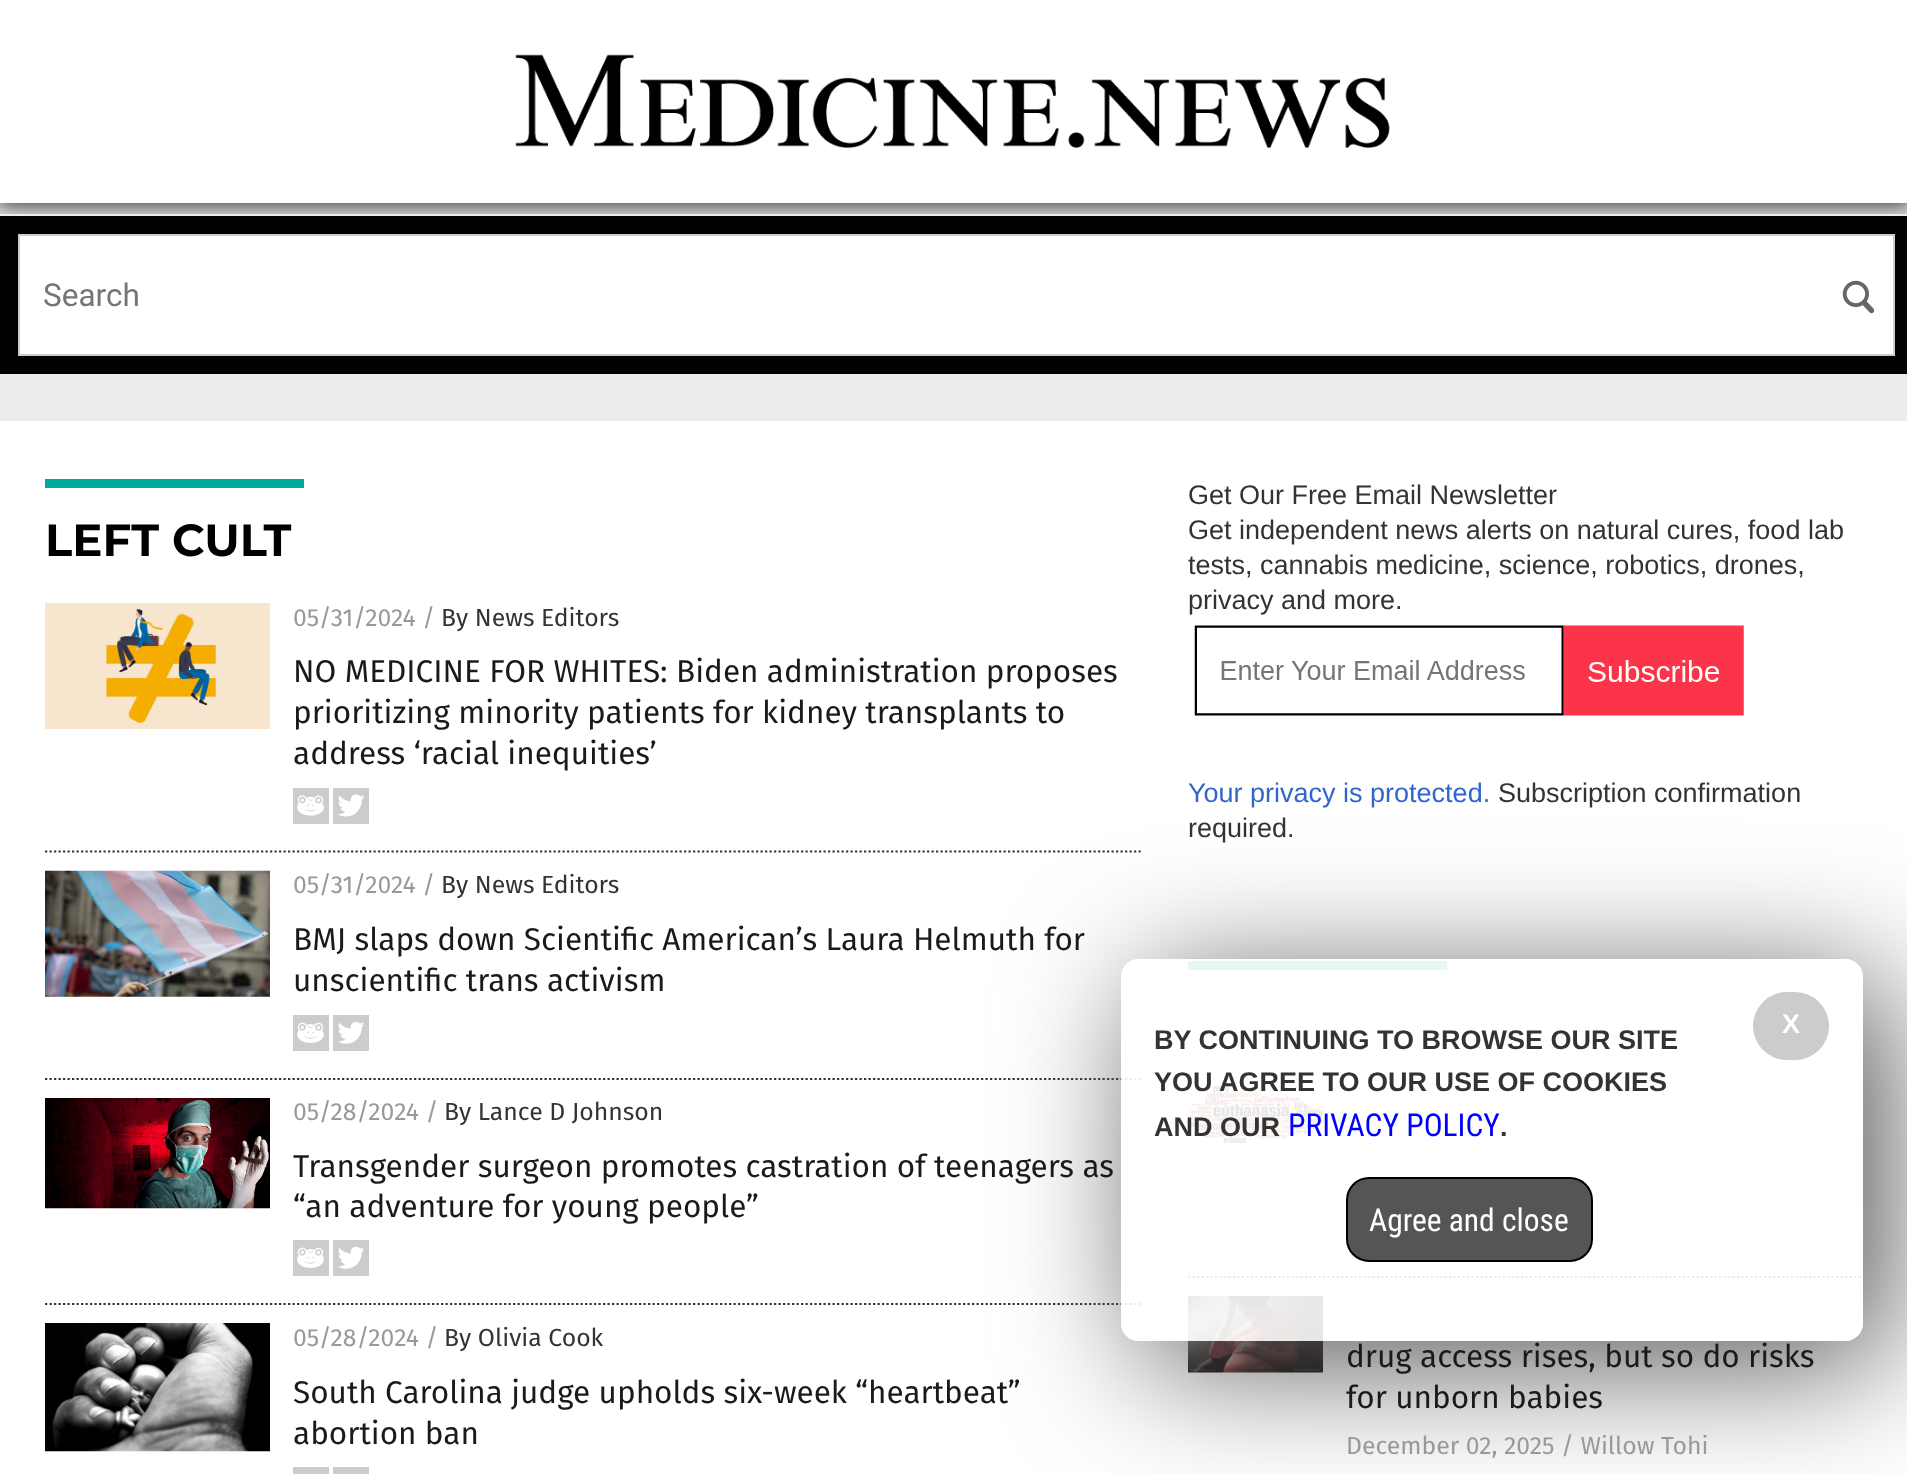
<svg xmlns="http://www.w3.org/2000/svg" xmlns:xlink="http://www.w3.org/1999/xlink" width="1907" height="1474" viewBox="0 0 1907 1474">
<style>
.cls-1{font:31.5px Roboto;fill:#757575}
.cls-2{font:bold 45px Montserrat;fill:#000000}
.cls-3{font:24.75px Fira Sans;fill:#999999}
.cls-4{font:24.75px Fira Sans;fill:#333333}
.cls-5{font:31.5px Fira Sans;fill:#1a1a1a}
.cls-6{font:27px Liberation Sans;fill:#333333}
.cls-7{font:27px Liberation Sans;fill:#3366cc}
.cls-8{font:bold 27px Liberation Sans;fill:#ffffff}
.cls-9{font:bold 27px Liberation Sans;fill:#333333}
.cls-10{font:31.5px Roboto Condensed;fill:#0000ff}
.cls-11{font:31.5px Roboto Condensed;fill:#ffffff}
</style>
<defs>
<clipPath id="clip1"><path d="M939 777H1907V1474H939ZM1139 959H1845C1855 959 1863 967 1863 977V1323C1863 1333 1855 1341 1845 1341H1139C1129 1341 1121 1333 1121 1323V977C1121 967 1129 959 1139 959Z" clip-rule="evenodd"/></clipPath>
</defs>
<rect width="100%" height="100%" fill="#ececec"/>
<rect fill="#000000" fill-opacity="0.75" filter="blur(11px)" x="-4" y="-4" width="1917" height="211"/>
<rect fill="#ffffff" x="0" y="0" width="1907" height="203"/>
<image xlink:href="image0.png" x="515" y="54" width="875" height="95"/>
<rect fill="#000000" x="0" y="216" width="1907" height="158"/>
<rect fill="#ececec" x="0" y="214" width="1907" height="2"/>
<rect fill="#ffffff" stroke="#cccccc" stroke-width="2" x="19" y="235" width="1875" height="120"/>
<image xlink:href="image1.png" x="1842" y="280" width="33" height="34"/>
<rect fill="#ffffff" x="0" y="421" width="1907" height="1053"/>
<rect fill="#00a99d" x="45" y="479" width="259" height="9"/>
<path fill="none" stroke="#343434" stroke-width="2.2" stroke-dasharray="2.25 2.25" d="M45 851.5H1143"/>
<image xlink:href="image2.png" x="45" y="603" width="225" height="126"/>
<image xlink:href="image3.png" x="293" y="788" width="36" height="36"/>
<image xlink:href="image4.png" x="333" y="788" width="36" height="36"/>
<path fill="none" stroke="#343434" stroke-width="2.2" stroke-dasharray="2.25 2.25" d="M45 1079H1143"/>
<image xlink:href="image5.png" x="45" y="870" width="225" height="127"/>
<image xlink:href="image6.png" x="293" y="1015" width="36" height="36"/>
<image xlink:href="image7.png" x="333" y="1015" width="36" height="36"/>
<path fill="none" stroke="#343434" stroke-width="2.2" stroke-dasharray="2.25 2.25" d="M45 1304H1143"/>
<image xlink:href="image8.png" x="45" y="1098" width="225" height="111"/>
<image xlink:href="image6.png" x="293" y="1240" width="36" height="36"/>
<image xlink:href="image7.png" x="333" y="1240" width="36" height="36"/>
<image xlink:href="image9.png" x="45" y="1323" width="225" height="129"/>
<rect fill="#cccccc" x="293" y="1467" width="36" height="7"/>
<rect fill="#cccccc" x="333" y="1467" width="36" height="7"/>
<image xlink:href="image10.png" x="1194" y="625" width="550" height="91"/>
<rect fill="#00a99d" x="1188" y="961" width="259" height="9"/>
<path fill="none" stroke="#343434" stroke-width="2.2" stroke-dasharray="2.25 2.25" d="M1188 1277H1863"/>
<image xlink:href="image11.png" x="1188" y="1084" width="135" height="59"/>
<image xlink:href="image12.png" x="1188" y="1296" width="135" height="77"/>
<g clip-path="url(#clip1)">
<rect fill="#555555" filter="blur(67.5px)" x="1143" y="981" width="743" height="383" rx="18"/>
</g>
<rect fill="#ffffff" fill-opacity="0.9" x="1121" y="959" width="742" height="382" rx="18"/>
<rect fill="#cccccc" x="1753" y="992" width="76" height="68" rx="34"/>
<rect fill="#555555" stroke="#000000" stroke-width="2" x="1347" y="1178" width="245" height="83" rx="22"/>
<text class="cls-1" x="43" y="306">Search</text>
<text class="cls-2" x="45" y="556">LEFT CULT</text>
<text class="cls-3" x="293" y="626">05/31/2024 /</text>
<text class="cls-4" x="441" y="626">By News Editors</text>
<text class="cls-5"><tspan x="293" y="682">NO MEDICINE FOR WHITES: Biden administration proposes</tspan><tspan x="293" y="723">prioritizing minority patients for kidney transplants to</tspan><tspan x="293" y="764">address ‘racial inequities’</tspan></text>
<text class="cls-3" x="293" y="893">05/31/2024 /</text>
<text class="cls-4" x="441" y="893">By News Editors</text>
<text class="cls-5"><tspan x="293" y="950">BMJ slaps down Scientific American’s Laura Helmuth for</tspan><tspan x="293" y="991">unscientific trans activism</tspan></text>
<text class="cls-3" x="293" y="1120">05/28/2024 /</text>
<text class="cls-4" x="444" y="1120">By Lance D Johnson</text>
<text class="cls-5"><tspan x="293" y="1177">Transgender surgeon promotes castration of teenagers as</tspan><tspan x="293" y="1217">“an adventure for young people”</tspan></text>
<text class="cls-3" x="293" y="1346">05/28/2024 /</text>
<text class="cls-4" x="444" y="1346">By Olivia Cook</text>
<text class="cls-5"><tspan x="293" y="1403">South Carolina judge upholds six-week “heartbeat”</tspan><tspan x="293" y="1444">abortion ban</tspan></text>
<text class="cls-6"><tspan x="1188" y="504">Get Our Free Email Newsletter</tspan><tspan x="1188" y="539">Get independent news alerts on natural cures, food lab</tspan><tspan x="1188" y="574">tests, cannabis medicine, science, robotics, drones,</tspan><tspan x="1188" y="609">privacy and more.</tspan></text>
<text class="cls-7" x="1188" y="802">Your privacy is protected.</text>
<text class="cls-6" x="1498" y="802">Subscription confirmation</text>
<text class="cls-6" x="1188" y="837">required.</text>
<text class="cls-5"><tspan x="1346" y="1367">drug access rises, but so do risks</tspan><tspan x="1346" y="1408">for unborn babies</tspan></text>
<text class="cls-3" x="1346" y="1454">December 02, 2025 / Willow Tohi</text>
<text class="cls-8" x="1782" y="1033">X</text>
<text class="cls-9"><tspan x="1154" y="1049">BY CONTINUING TO BROWSE OUR SITE</tspan><tspan x="1154" y="1091">YOU AGREE TO OUR USE OF COOKIES</tspan><tspan x="1154" y="1136">AND OUR</tspan></text>
<text class="cls-10" x="1288" y="1136">PRIVACY POLICY</text>
<text class="cls-9" x="1500" y="1136">.</text>
<text class="cls-11" x="1369" y="1231">Agree and close</text>
</svg>
